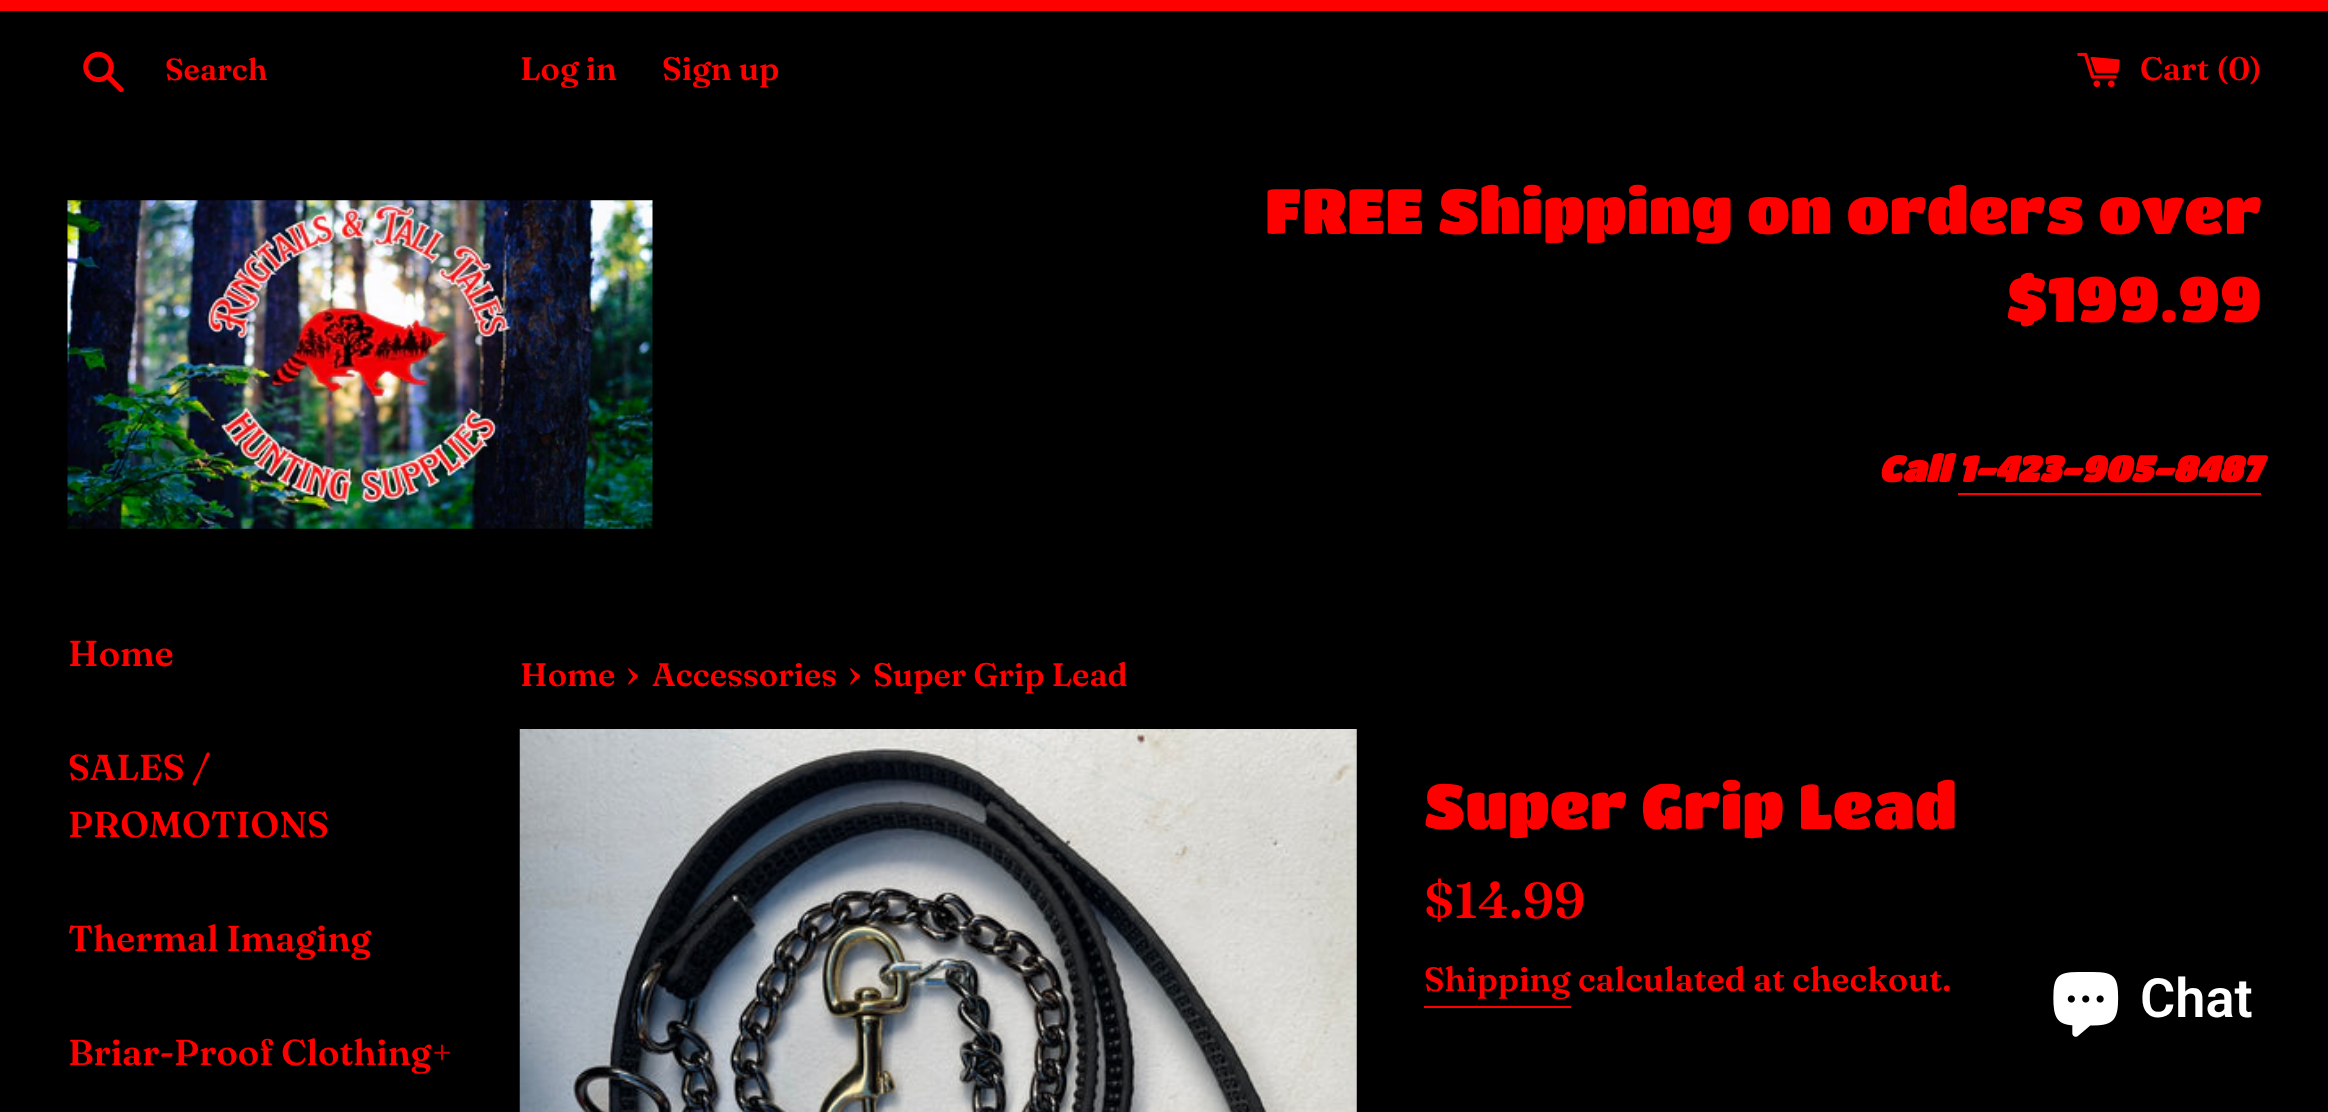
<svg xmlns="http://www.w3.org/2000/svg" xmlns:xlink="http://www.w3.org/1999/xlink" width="2328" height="1112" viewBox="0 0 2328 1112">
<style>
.cls-1{font:600 30.5px Fraunces;fill:#ff0000}
.cls-2{font:600 32.5px 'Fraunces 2';fill:#ff0000}
.cls-3{font:63px Titan One;fill:#ff0000}
.cls-4{font:italic bold 36px Titan One;fill:#ff0000}
.cls-5{font:600 36px 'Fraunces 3';fill:#ff0000}
.cls-6{font:600 36px 'Fraunces 3';fill:#cc0000}
.cls-7{font:600 40px Fraunces;fill:#ff0000}
.cls-8{font:600 50.5px 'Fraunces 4';fill:#ff0000}
.cls-9{font:600 33.75px 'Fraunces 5';fill:#ff0000}
.cls-10{font:600 54px Roboto;fill:#ffffff}
</style>
<rect width="100%" height="100%" fill="#000000"/>
<rect fill="#ff0000" x="0" y="0" width="2328" height="11"/>
<image xlink:href="image0.png" x="83" y="51" width="41" height="42"/>
<image xlink:href="image1.png" x="2077" y="52" width="43" height="36"/>
<image xlink:href="image2.png" x="67" y="200" width="586" height="329"/>
<rect fill="#ff0000" x="1958" y="493" width="303" height="2"/>
<image xlink:href="image3.png" x="519" y="729" width="838" height="383"/>
<rect fill="#ff0000" x="1424" y="1006" width="147" height="2"/>
<image xlink:href="image4.png" x="2053" y="972" width="66" height="65"/>
<text class="cls-1" x="165" y="80">Search</text>
<text class="cls-2" x="520" y="80">Log in</text>
<text class="cls-2" x="662" y="80">Sign up</text>
<text class="cls-2" x="2140" y="80">Cart (0)</text>
<text class="cls-3" x="1265" y="234">FREE Shipping on orders over</text>
<text class="cls-3" x="2006" y="322">$199.99</text>
<text class="cls-4" x="1878" y="482">Call 1-423-905-8487</text>
<text class="cls-5" x="68" y="666">Home</text>
<text class="cls-5"><tspan x="68" y="780">SALES /</tspan><tspan x="68" y="837">PROMOTIONS</tspan></text>
<text class="cls-5" x="68" y="951">Thermal Imaging</text>
<text class="cls-5" x="68" y="1065">Briar-Proof Clothing</text>
<text class="cls-6" x="432" y="1065">+</text>
<text class="cls-2" x="520" y="686">Home</text>
<text class="cls-7" x="626" y="686">›</text>
<text class="cls-2" x="652" y="686">Accessories</text>
<text class="cls-7" x="848" y="686">›</text>
<text class="cls-2" x="873" y="686">Super Grip Lead</text>
<text class="cls-3" x="1424" y="829">Super Grip Lead</text>
<text class="cls-8" x="1424" y="918">$14.99</text>
<text class="cls-9" x="1424" y="991">Shipping calculated at checkout.</text>
<text class="cls-10" x="2140" y="1017">Chat</text>
</svg>
